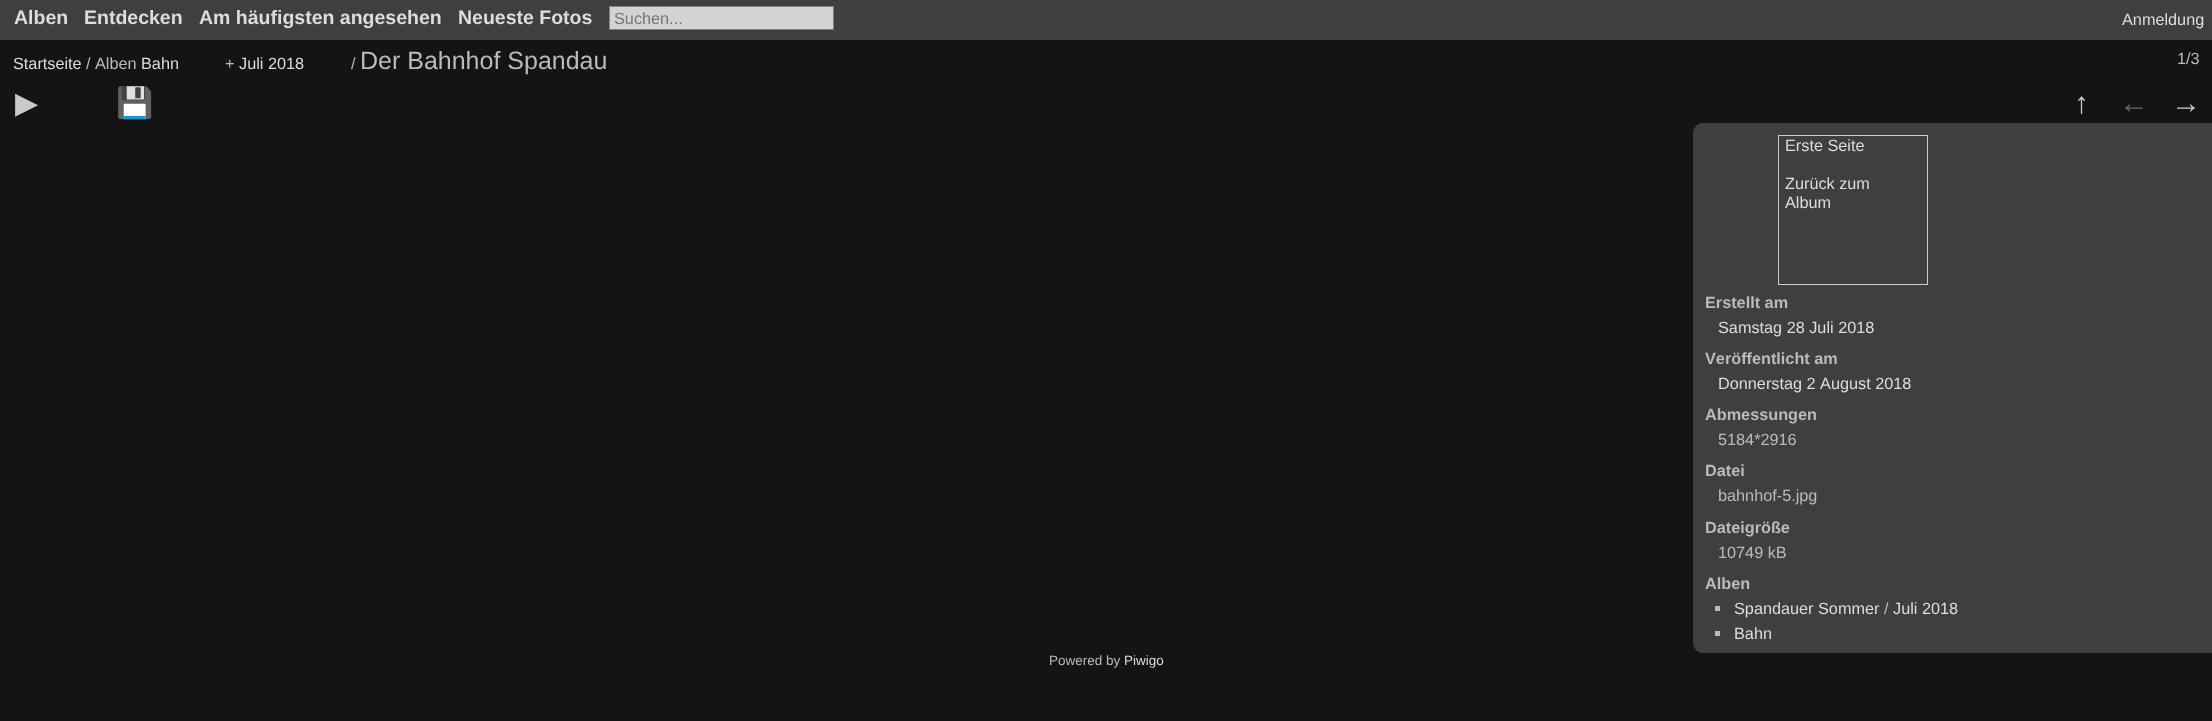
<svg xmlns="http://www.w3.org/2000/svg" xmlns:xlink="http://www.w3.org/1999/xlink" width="2212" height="721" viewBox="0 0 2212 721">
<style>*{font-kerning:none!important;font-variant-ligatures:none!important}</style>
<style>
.cls-1{font:bold 19.5px Liberation Sans;fill:#dddddd}
.cls-2{font:16.25px Liberation Sans;fill:#757575}
.cls-3{font:16.25px Liberation Sans;fill:#dddddd}
.cls-4{font:16.25px Liberation Sans;fill:#bbbbbb}
.cls-5{font:25px Liberation Sans;fill:#bbbbbb}
.cls-6{font:30px DejaVu Sans;fill:#c9c9c9}
.cls-7{font:30px Noto Color Emoji;fill:#c9c9c9}
.cls-8{font:30px Liberation Serif;fill:#c9c9c9}
.cls-9{font:30px Liberation Serif;fill:#686868}
.cls-10{font:bold 16.25px Liberation Sans;fill:#bbbbbb}
.cls-11{font:13.5px Liberation Sans;fill:#bbbbbb}
.cls-12{font:13.5px Liberation Sans;fill:#dddddd}
</style>
<rect width="100%" height="100%" fill="#141414"/>
<rect fill="#3f3f3f" x="0" y="0" width="2212" height="40"/>
<rect fill="#d3d3d3" stroke="#808080" x="609.5" y="6.5" width="224" height="23"/>
<path fill="#3f3f3f" d="M1703 123H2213V653H1703C1697.5 653 1693 648.5 1693 643V133C1693 127.5 1697.5 123 1703 123Z"/>
<rect fill="none" stroke="#cccccc" x="1778.5" y="135.5" width="149" height="149"/>
<rect fill="#bbbbbb" x="1715" y="606" width="5" height="5"/>
<rect fill="#bbbbbb" x="1715" y="631" width="5" height="5"/>
<text class="cls-1" x="14" y="24">Alben</text>
<text class="cls-1" x="84" y="24">Entdecken</text>
<text class="cls-1" x="199" y="24">Am häufigsten angesehen</text>
<text class="cls-1" x="458" y="24">Neueste Fotos</text>
<text class="cls-2" x="614" y="24">Suchen...</text>
<text class="cls-3" x="2122" y="25">Anmeldung</text>
<text class="cls-3" x="13" y="69">Startseite</text>
<text class="cls-4" x="86" y="69">/ Alben</text>
<text class="cls-3" x="141" y="69">Bahn</text>
<text class="cls-4" x="225" y="69">+</text>
<text class="cls-3" x="239" y="69">Juli 2018</text>
<text class="cls-4" x="351" y="69">/</text>
<text class="cls-5" x="360" y="69">Der Bahnhof Spandau</text>
<text class="cls-4" x="2177" y="64">1/3</text>
<text class="cls-6" x="15" y="113">▶</text>
<text class="cls-7" x="116" y="113">💾</text>
<text class="cls-8" x="2074" y="113">↑</text>
<text class="cls-9" x="2119" y="113">←</text>
<text class="cls-8" x="2171" y="113">→</text>
<text class="cls-3" x="1785" y="151">Erste Seite</text>
<text class="cls-3"><tspan x="1785" y="189">Zurück zum</tspan><tspan x="1785" y="208">Album</tspan></text>
<text class="cls-10" x="1705" y="308">Erstellt am</text>
<text class="cls-3" x="1718" y="333">Samstag 28 Juli 2018</text>
<text class="cls-10" x="1705" y="364">Veröffentlicht am</text>
<text class="cls-3" x="1718" y="389">Donnerstag 2 August 2018</text>
<text class="cls-10" x="1705" y="420">Abmessungen</text>
<text class="cls-4" x="1718" y="445">5184*2916</text>
<text class="cls-10" x="1705" y="476">Datei</text>
<text class="cls-4" x="1718" y="501">bahnhof-5.jpg</text>
<text class="cls-10" x="1705" y="533">Dateigröße</text>
<text class="cls-4" x="1718" y="558">10749 kB</text>
<text class="cls-10" x="1705" y="589">Alben</text>
<text class="cls-3" x="1734" y="614">Spandauer Sommer</text>
<text class="cls-4" x="1884" y="614">/</text>
<text class="cls-3" x="1893" y="614">Juli 2018</text>
<text class="cls-3" x="1734" y="639">Bahn</text>
<text class="cls-11" x="1049" y="665">Powered by</text>
<text class="cls-12" x="1124" y="665">Piwigo</text>
</svg>
